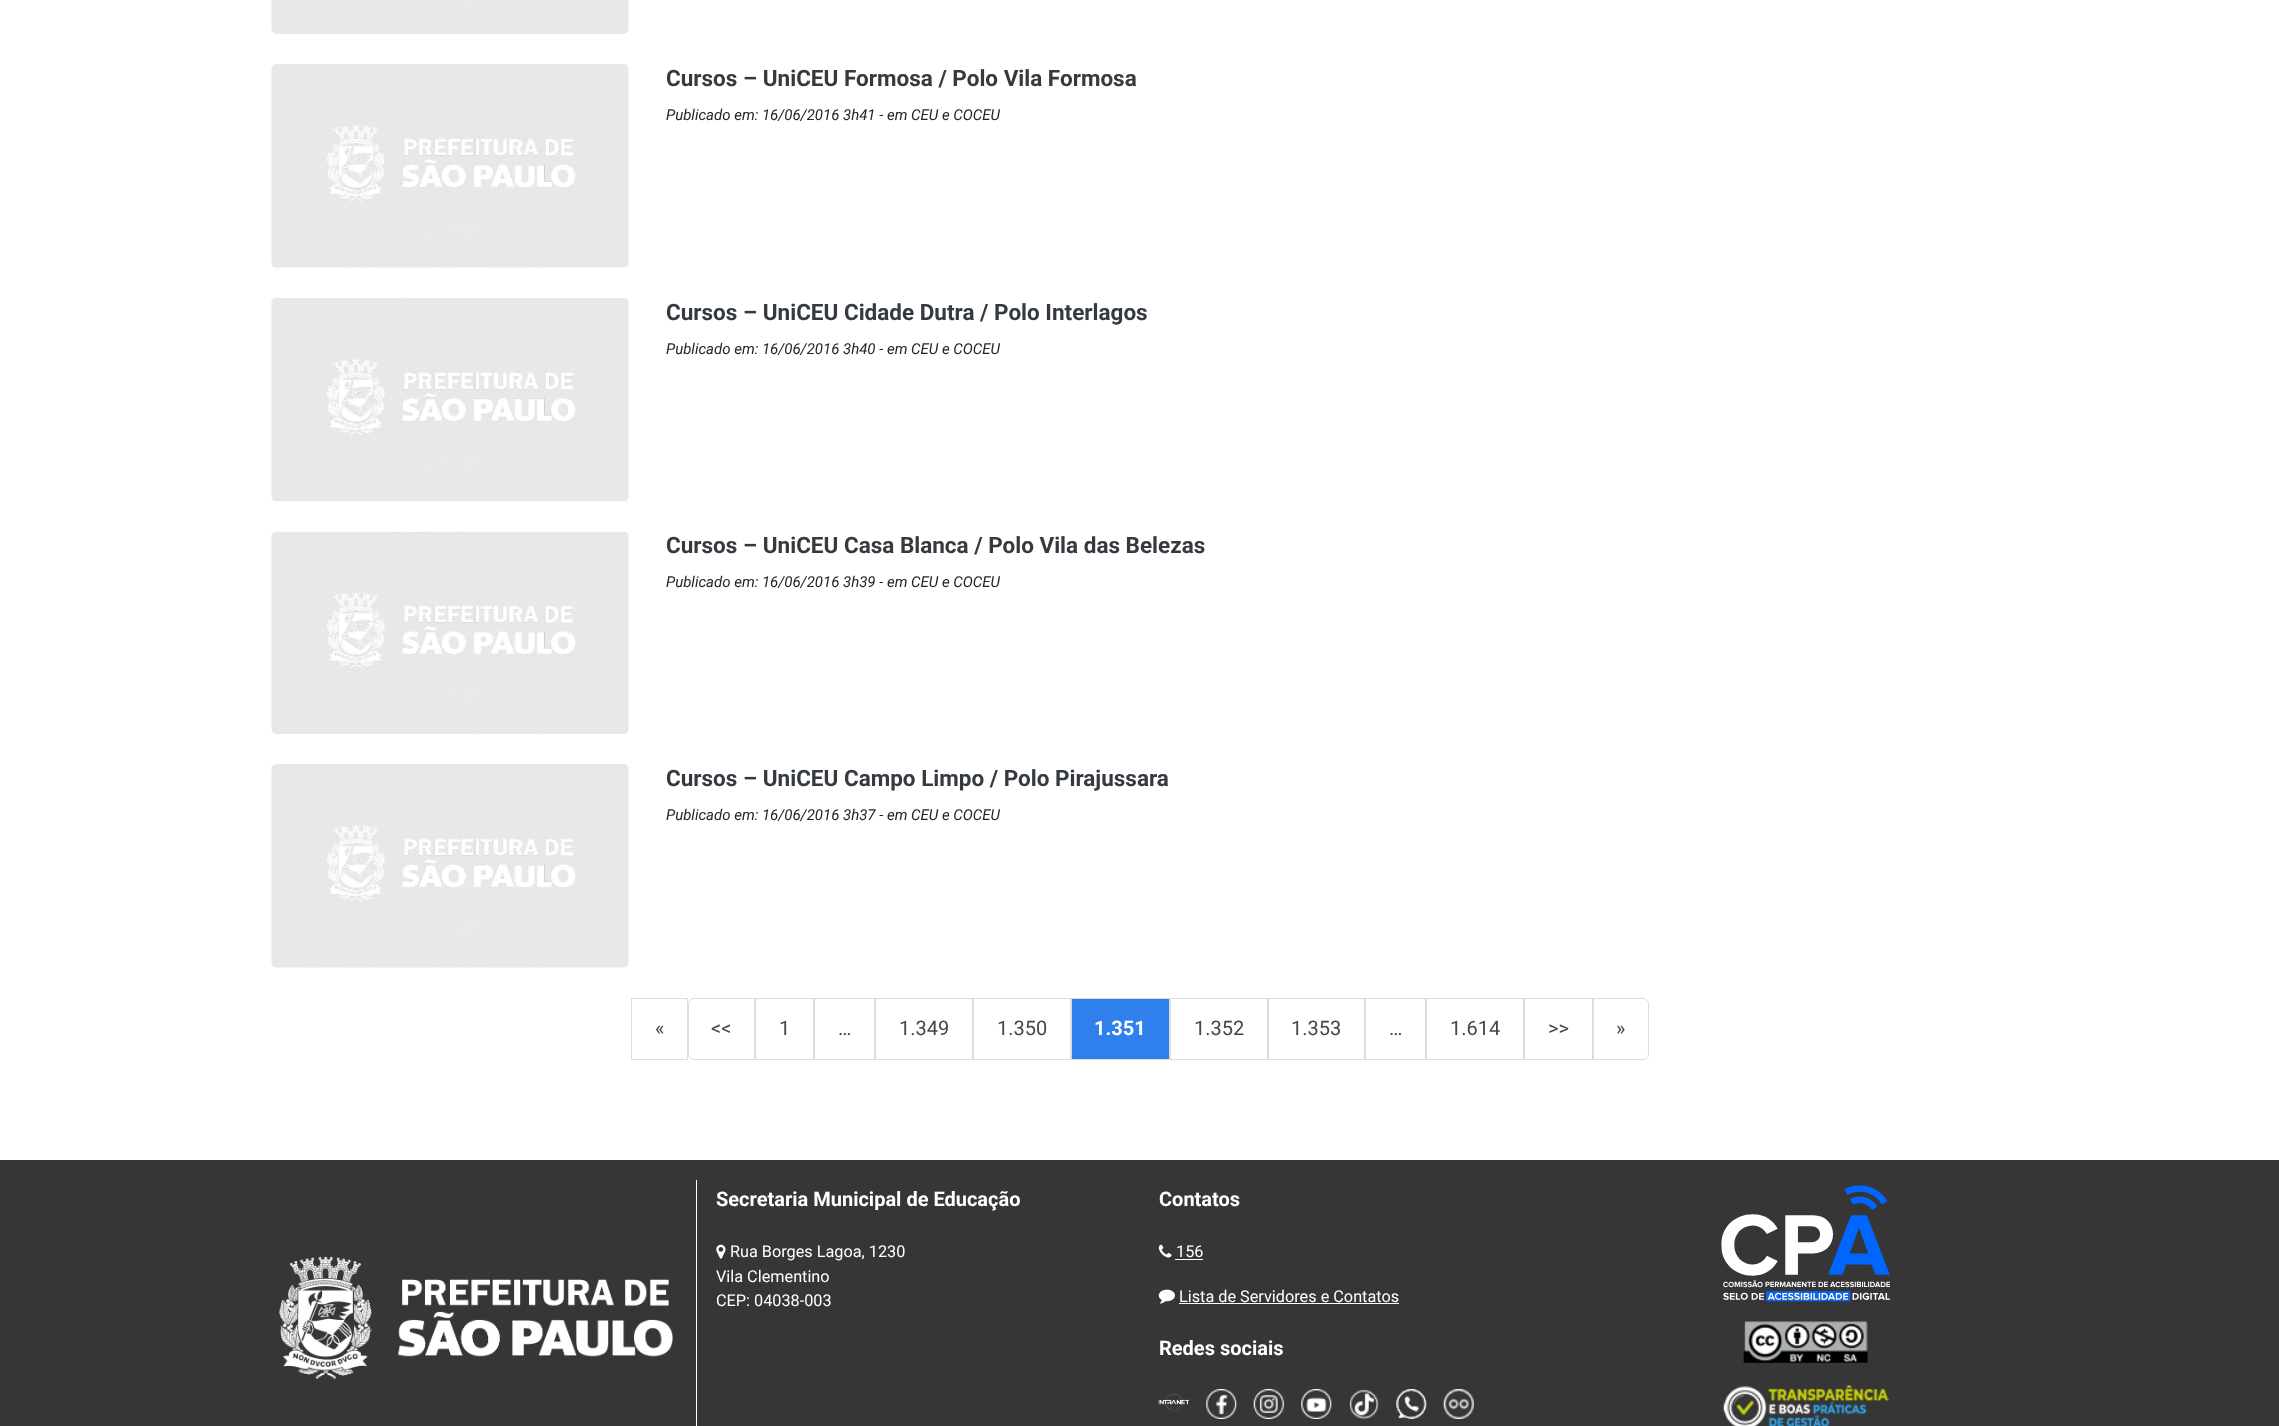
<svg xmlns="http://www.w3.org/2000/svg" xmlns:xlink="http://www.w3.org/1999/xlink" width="2279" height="1426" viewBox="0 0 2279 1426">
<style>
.cls-1{font:bold 22.5px Roboto;fill:#343a40}
.cls-2{font:italic 15px Roboto;fill:#212529}
.cls-3{font:20px Roboto;fill:#42474a}
.cls-4{font:bold 20px Roboto;fill:#ffffff}
.cls-5{font:16.25px Roboto;fill:#ffffff}
</style>
<rect width="100%" height="100%" fill="#ffffff"/>
<image xlink:href="image0.png" x="271" y="0" width="358" height="34"/>
<image xlink:href="image1.png" x="271" y="64" width="358" height="204"/>
<image xlink:href="image2.png" x="271" y="298" width="358" height="204"/>
<image xlink:href="image3.png" x="271" y="531" width="358" height="203"/>
<image xlink:href="image1.png" x="271" y="764" width="358" height="204"/>
<rect fill="none" stroke="#dddddd" x="631.5" y="998.5" width="56" height="61"/>
<path fill="none" stroke="#dddddd" d="M694 998.5H754.5V1059.5H694C691 1059.5 688.5 1057 688.5 1054V1004C688.5 1001 691 998.5 694 998.5Z"/>
<rect fill="none" stroke="#dddddd" x="755.5" y="998.5" width="58" height="61"/>
<rect fill="none" stroke="#dddddd" x="814.5" y="998.5" width="60" height="61"/>
<rect fill="none" stroke="#dddddd" x="875.5" y="998.5" width="97" height="61"/>
<rect fill="none" stroke="#dddddd" x="973.5" y="998.5" width="97" height="61"/>
<rect fill="#2f80ed" stroke="#dddddd" x="1071.5" y="998.5" width="98" height="61"/>
<rect fill="none" stroke="#dddddd" x="1170.5" y="998.5" width="97" height="61"/>
<rect fill="none" stroke="#dddddd" x="1268.5" y="998.5" width="96" height="61"/>
<rect fill="none" stroke="#dddddd" x="1365.5" y="998.5" width="60" height="61"/>
<rect fill="none" stroke="#dddddd" x="1426.5" y="998.5" width="97" height="61"/>
<rect fill="none" stroke="#dddddd" x="1524.5" y="998.5" width="68" height="61"/>
<path fill="none" stroke="#dddddd" d="M1593.5 998.5H1643C1646 998.5 1648.5 1001 1648.5 1004V1054C1648.5 1057 1646 1059.5 1643 1059.5H1593.5Z"/>
<rect fill="#363636" x="0" y="1160" width="2279" height="266"/>
<image xlink:href="image4.png" x="279" y="1256" width="394" height="124"/>
<rect fill="#ffffff" x="696" y="1180" width="1" height="246"/>
<image xlink:href="image5.png" x="716" y="1244" width="10" height="15"/>
<image xlink:href="image6.png" x="1158" y="1244" width="14" height="14"/>
<rect fill="#ffffff" x="1175" y="1259" width="28" height="1"/>
<image xlink:href="image7.png" x="1158" y="1289" width="17" height="15"/>
<rect fill="#ffffff" x="1179" y="1303" width="220" height="1"/>
<image xlink:href="image8.png" x="1158" y="1394" width="31" height="17"/>
<image xlink:href="image9.png" x="1206" y="1389" width="31" height="30"/>
<image xlink:href="image10.png" x="1253" y="1389" width="31" height="30"/>
<image xlink:href="image11.png" x="1301" y="1389" width="31" height="30"/>
<image xlink:href="image12.png" x="1349" y="1390" width="30" height="30"/>
<image xlink:href="image13.png" x="1396" y="1389" width="31" height="30"/>
<image xlink:href="image14.png" x="1443" y="1389" width="31" height="30"/>
<image xlink:href="image15.png" x="1721" y="1185" width="169" height="117"/>
<image xlink:href="image16.png" x="1743" y="1321" width="125" height="42"/>
<image xlink:href="image17.png" x="1723" y="1385" width="166" height="41"/>
<text class="cls-1" x="666" y="86">Cursos – UniCEU Formosa / Polo Vila Formosa</text>
<text class="cls-2" x="666" y="120">Publicado em: 16/06/2016 3h41 - em CEU e COCEU</text>
<text class="cls-1" x="666" y="320">Cursos – UniCEU Cidade Dutra / Polo Interlagos</text>
<text class="cls-2" x="666" y="354">Publicado em: 16/06/2016 3h40 - em CEU e COCEU</text>
<text class="cls-1" x="666" y="553">Cursos – UniCEU Casa Blanca / Polo Vila das Belezas</text>
<text class="cls-2" x="666" y="587">Publicado em: 16/06/2016 3h39 - em CEU e COCEU</text>
<text class="cls-1" x="666" y="786">Cursos – UniCEU Campo Limpo / Polo Pirajussara</text>
<text class="cls-2" x="666" y="820">Publicado em: 16/06/2016 3h37 - em CEU e COCEU</text>
<text class="cls-3" x="655" y="1035">«</text>
<text class="cls-3" x="711" y="1035">&lt;&lt;</text>
<text class="cls-3" x="779" y="1035">1</text>
<text class="cls-3" x="838" y="1035">…</text>
<text class="cls-3" x="899" y="1035">1.349</text>
<text class="cls-3" x="997" y="1035">1.350</text>
<text class="cls-4" x="1094" y="1035">1.351</text>
<text class="cls-3" x="1194" y="1035">1.352</text>
<text class="cls-3" x="1291" y="1035">1.353</text>
<text class="cls-3" x="1389" y="1035">…</text>
<text class="cls-3" x="1450" y="1035">1.614</text>
<text class="cls-3" x="1548" y="1035">&gt;&gt;</text>
<text class="cls-3" x="1616" y="1035">»</text>
<text class="cls-4" x="716" y="1206">Secretaria Municipal de Educação</text>
<text class="cls-5" x="730" y="1257">Rua Borges Lagoa, 1230</text>
<text class="cls-5"><tspan x="716" y="1282">Vila Clementino</tspan><tspan x="716" y="1306">CEP: 04038-003</tspan></text>
<text class="cls-4" x="1159" y="1206">Contatos</text>
<text class="cls-5" x="1176" y="1257">156</text>
<text class="cls-5" x="1179" y="1302">Lista de Servidores e Contatos</text>
<text class="cls-4" x="1159" y="1355">Redes sociais</text>
</svg>
